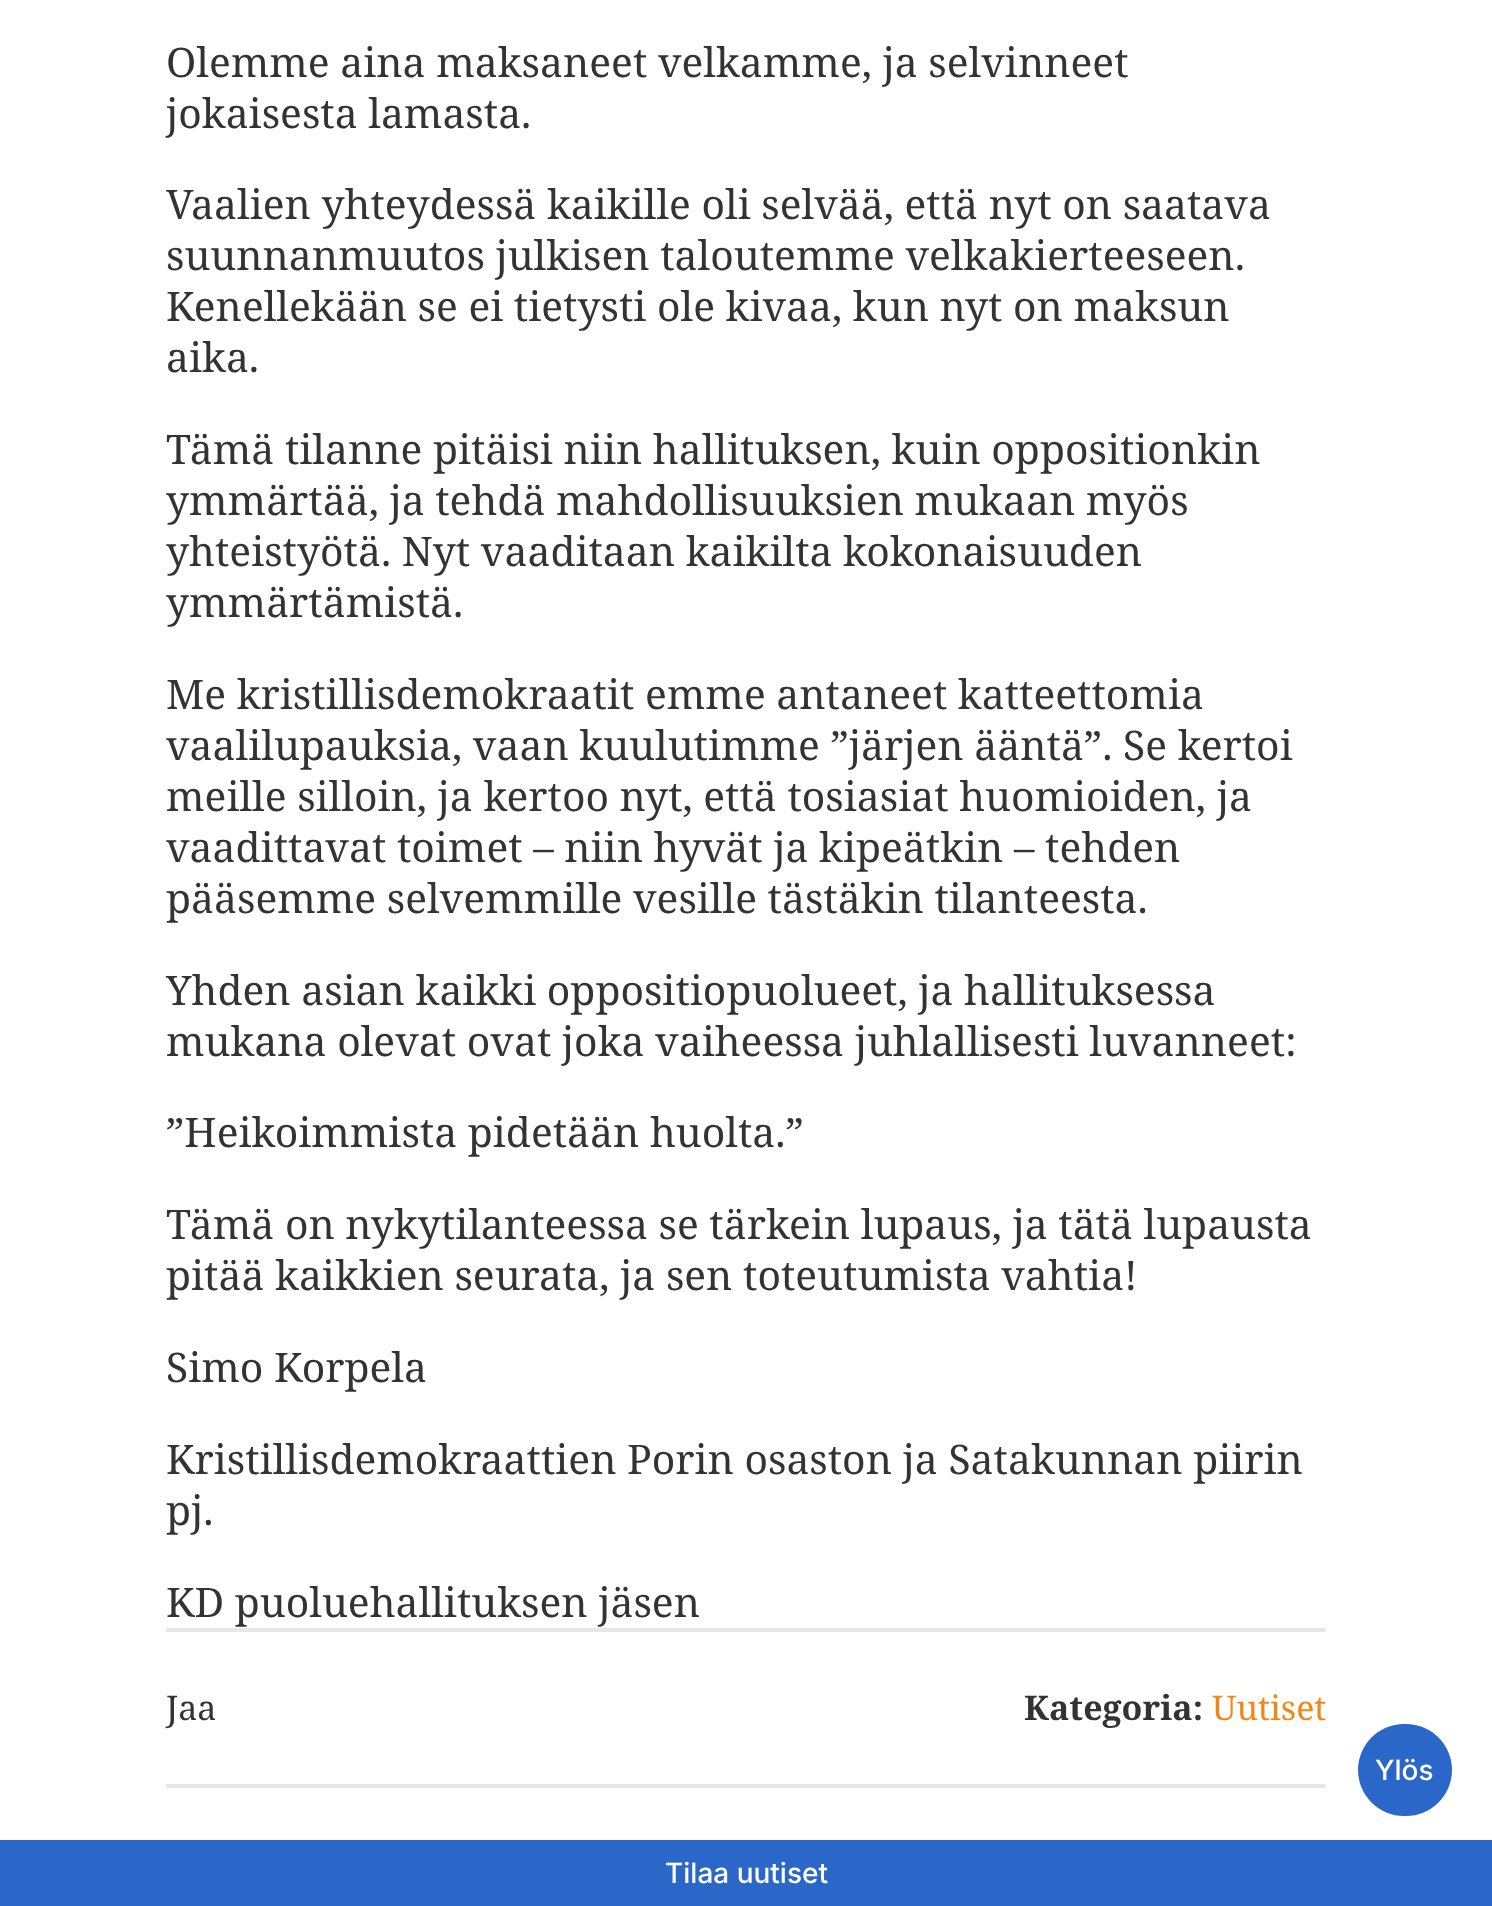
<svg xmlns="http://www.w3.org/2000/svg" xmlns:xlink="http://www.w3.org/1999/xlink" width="1492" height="1906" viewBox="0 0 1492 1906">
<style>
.cls-1{font:40.8px Noto Serif;fill:#333333}
.cls-2{font:34px Noto Serif;fill:#333333}
.cls-3{font:bold 34px Noto Serif;fill:#333333}
.cls-4{font:34px Noto Serif;fill:#f18716}
.cls-5{font:500 28px Inter;fill:#ffffff}
</style>
<rect width="100%" height="100%" fill="#ffffff"/>
<rect fill="#e7e7e7" x="166" y="1628" width="1160" height="4"/>
<rect fill="#e7e7e7" x="166" y="1784" width="1160" height="4"/>
<rect fill="#2b67c9" x="1358" y="1724" width="94" height="92" rx="46"/>
<rect fill="#2b67c9" x="0" y="1840" width="1492" height="66"/>
<text class="cls-1"><tspan x="166" y="77">Olemme aina maksaneet velkamme, ja selvinneet</tspan><tspan x="166" y="128">jokaisesta lamasta.</tspan></text>
<text class="cls-1"><tspan x="166" y="219">Vaalien yhteydessä kaikille oli selvää, että nyt on saatava</tspan><tspan x="166" y="270">suunnanmuutos julkisen taloutemme velkakierteeseen.</tspan><tspan x="166" y="321">Kenellekään se ei tietysti ole kivaa, kun nyt on maksun</tspan><tspan x="166" y="372">aika.</tspan></text>
<text class="cls-1"><tspan x="166" y="464">Tämä tilanne pitäisi niin hallituksen, kuin oppositionkin</tspan><tspan x="166" y="515">ymmärtää, ja tehdä mahdollisuuksien mukaan myös</tspan><tspan x="166" y="566">yhteistyötä. Nyt vaaditaan kaikilta kokonaisuuden</tspan><tspan x="166" y="617">ymmärtämistä.</tspan></text>
<text class="cls-1"><tspan x="166" y="709">Me kristillisdemokraatit emme antaneet katteettomia</tspan><tspan x="166" y="760">vaalilupauksia, vaan kuulutimme ”järjen ääntä”. Se kertoi</tspan><tspan x="166" y="811">meille silloin, ja kertoo nyt, että tosiasiat huomioiden, ja</tspan><tspan x="166" y="862">vaadittavat toimet – niin hyvät ja kipeätkin – tehden</tspan><tspan x="166" y="913">pääsemme selvemmille vesille tästäkin tilanteesta.</tspan></text>
<text class="cls-1"><tspan x="166" y="1005">Yhden asian kaikki oppositiopuolueet, ja hallituksessa</tspan><tspan x="166" y="1056">mukana olevat ovat joka vaiheessa juhlallisesti luvanneet:</tspan></text>
<text class="cls-1" x="166" y="1147">”Heikoimmista pidetään huolta.”</text>
<text class="cls-1"><tspan x="166" y="1239">Tämä on nykytilanteessa se tärkein lupaus, ja tätä lupausta</tspan><tspan x="166" y="1290">pitää kaikkien seurata, ja sen toteutumista vahtia!</tspan></text>
<text class="cls-1" x="166" y="1382">Simo Korpela</text>
<text class="cls-1"><tspan x="166" y="1474">Kristillisdemokraattien Porin osaston ja Satakunnan piirin</tspan><tspan x="166" y="1525">pj.</tspan></text>
<text class="cls-1" x="166" y="1617">KD puoluehallituksen jäsen</text>
<text class="cls-2" x="166" y="1720">Jaa</text>
<text class="cls-3" x="1024" y="1720">Kategoria:</text>
<text class="cls-4" x="1212" y="1720">Uutiset</text>
<text class="cls-5" x="1375" y="1780">Ylös</text>
<text class="cls-5" x="665" y="1883">Tilaa uutiset</text>
</svg>
